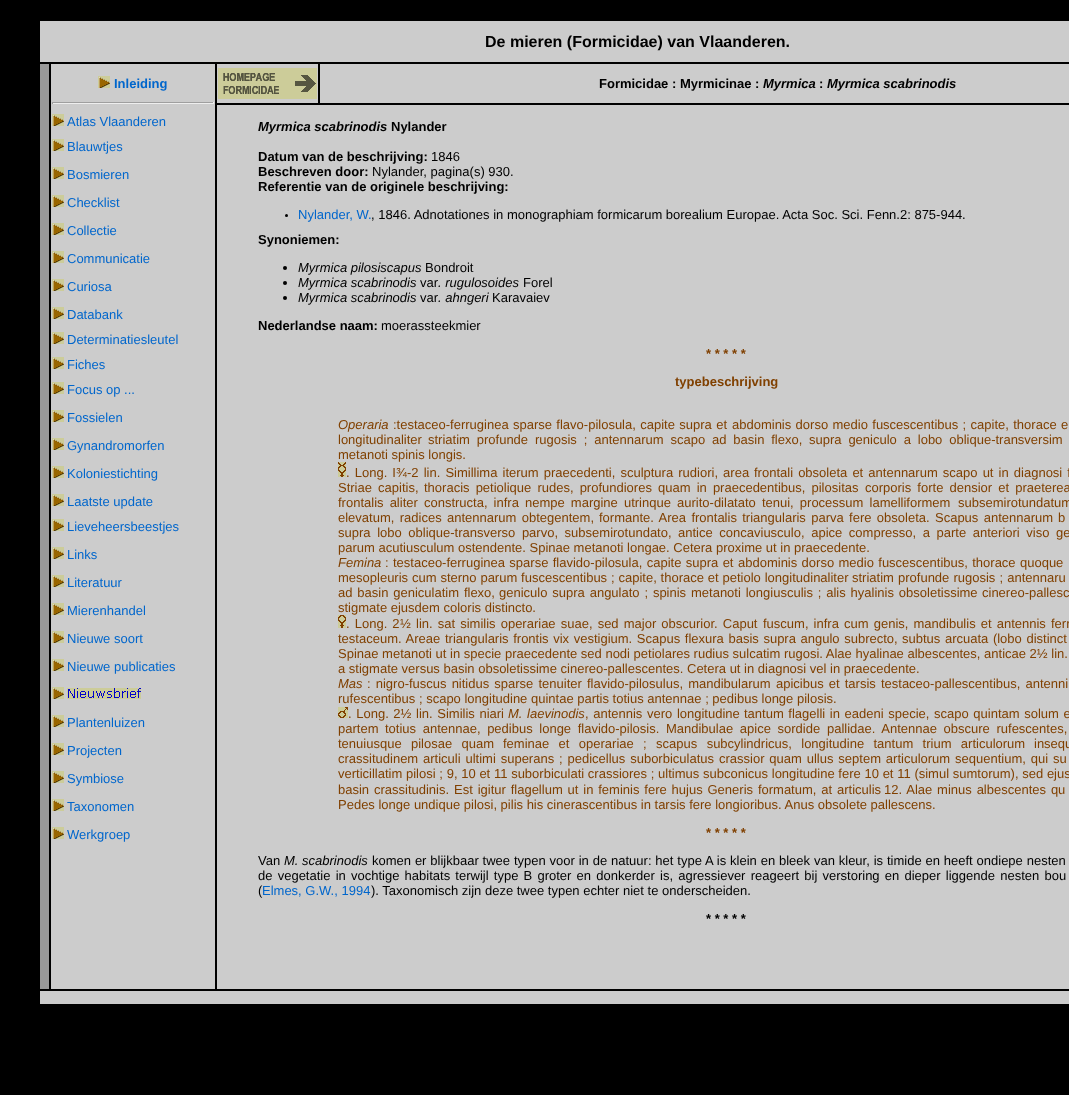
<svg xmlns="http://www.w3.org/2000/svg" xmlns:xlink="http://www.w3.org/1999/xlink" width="1069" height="1095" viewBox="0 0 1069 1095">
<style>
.cls-1{font:bold 16px Liberation Sans;fill:#000000}
.cls-2{font:bold 13px Liberation Sans;fill:#0066cc}
.cls-3{font:13px Liberation Sans;fill:#0066cc}
.cls-4{font:bold 13px Liberation Sans;fill:#000000}
.cls-5{font:italic bold 13px Liberation Sans;fill:#000000}
.cls-6{font:13px Liberation Sans;fill:#000000}
.cls-7{font:italic 13px Liberation Sans;fill:#000000}
.cls-8{font:bold 13px Liberation Sans;fill:#804000}
.cls-9{font:italic 13px Liberation Sans;fill:#804000}
.cls-10{font:13px Liberation Sans;fill:#804000}
</style>
<rect width="100%" height="100%" fill="#000000"/>
<rect fill="#cccccc" x="40" y="21" width="1029" height="41"/>
<rect fill="#999999" x="40" y="64" width="9" height="925"/>
<rect fill="#cccccc" x="51" y="64" width="164" height="925"/>
<image xlink:href="image0.png" x="98" y="76" width="12" height="12"/>
<rect fill="#9f9f9f" x="52" y="102" width="162" height="1"/>
<rect fill="#eeeeee" x="213" y="102" width="1" height="2"/>
<rect fill="#eeeeee" x="52" y="103" width="162" height="1"/>
<rect fill="#9f9f9f" x="52" y="102" width="1" height="2"/>
<image xlink:href="image0.png" x="52" y="114" width="12" height="12"/>
<image xlink:href="image0.png" x="52" y="139" width="12" height="12"/>
<image xlink:href="image0.png" x="52" y="167" width="12" height="12"/>
<image xlink:href="image0.png" x="52" y="195" width="12" height="12"/>
<image xlink:href="image0.png" x="52" y="223" width="12" height="12"/>
<image xlink:href="image0.png" x="52" y="251" width="12" height="12"/>
<image xlink:href="image0.png" x="52" y="279" width="12" height="12"/>
<image xlink:href="image0.png" x="52" y="307" width="12" height="12"/>
<image xlink:href="image0.png" x="52" y="332" width="12" height="12"/>
<image xlink:href="image0.png" x="52" y="357" width="12" height="12"/>
<image xlink:href="image0.png" x="52" y="382" width="12" height="12"/>
<image xlink:href="image0.png" x="52" y="410" width="12" height="12"/>
<image xlink:href="image0.png" x="52" y="438" width="12" height="12"/>
<image xlink:href="image0.png" x="52" y="466" width="12" height="12"/>
<image xlink:href="image0.png" x="52" y="494" width="12" height="12"/>
<image xlink:href="image0.png" x="52" y="519" width="12" height="12"/>
<image xlink:href="image0.png" x="52" y="547" width="12" height="12"/>
<image xlink:href="image0.png" x="52" y="575" width="12" height="12"/>
<image xlink:href="image0.png" x="52" y="603" width="12" height="12"/>
<image xlink:href="image0.png" x="52" y="631" width="12" height="12"/>
<image xlink:href="image0.png" x="52" y="659" width="12" height="12"/>
<image xlink:href="image0.png" x="52" y="687" width="12" height="12"/>
<image xlink:href="image1.png" x="67" y="688" width="74" height="11"/>
<image xlink:href="image0.png" x="52" y="715" width="12" height="12"/>
<image xlink:href="image0.png" x="52" y="743" width="12" height="12"/>
<image xlink:href="image0.png" x="52" y="771" width="12" height="12"/>
<image xlink:href="image0.png" x="52" y="799" width="12" height="12"/>
<image xlink:href="image0.png" x="52" y="827" width="12" height="12"/>
<rect fill="#cccccc" x="217" y="64" width="101" height="39"/>
<image xlink:href="image2.png" x="218" y="68" width="99" height="31"/>
<rect fill="#cccccc" x="320" y="64" width="749" height="39"/>
<rect fill="#cccccc" x="217" y="105" width="852" height="884"/>
<circle fill="#000000" cx="286.5" cy="215.5" r="1.5"/>
<circle fill="#000000" cx="285" cy="268" r="2"/>
<circle fill="#000000" cx="285" cy="283" r="2"/>
<circle fill="#000000" cx="285" cy="298" r="2"/>
<image xlink:href="image3.png" x="338" y="462" width="8" height="15"/>
<image xlink:href="image4.png" x="338" y="615" width="8" height="13"/>
<image xlink:href="image5.png" x="338" y="707" width="10" height="11"/>
<rect fill="#cccccc" x="40" y="991" width="1029" height="13"/>
<text class="cls-1" x="485" y="47">De mieren (Formicidae) van Vlaanderen.</text>
<text class="cls-2" x="114" y="88">Inleiding</text>
<text class="cls-3"><tspan x="67" y="126">Atlas Vlaanderen</tspan><tspan x="67" y="151">Blauwtjes</tspan></text>
<text class="cls-3" x="67" y="179">Bosmieren</text>
<text class="cls-3" x="67" y="207">Checklist</text>
<text class="cls-3" x="67" y="235">Collectie</text>
<text class="cls-3" x="67" y="263">Communicatie</text>
<text class="cls-3" x="67" y="291">Curiosa</text>
<text class="cls-3"><tspan x="67" y="319">Databank</tspan><tspan x="67" y="344">Determinatiesleutel</tspan><tspan x="67" y="369">Fiches</tspan><tspan x="67" y="394">Focus op ...</tspan></text>
<text class="cls-3" x="67" y="422">Fossielen</text>
<text class="cls-3" x="67" y="450">Gynandromorfen</text>
<text class="cls-3" x="67" y="478">Koloniestichting</text>
<text class="cls-3"><tspan x="67" y="506">Laatste update</tspan><tspan x="67" y="531">Lieveheersbeestjes</tspan></text>
<text class="cls-3" x="67" y="559">Links</text>
<text class="cls-3" x="67" y="587">Literatuur</text>
<text class="cls-3" x="67" y="615">Mierenhandel</text>
<text class="cls-3" x="67" y="643">Nieuwe soort</text>
<text class="cls-3" x="67" y="671">Nieuwe publicaties</text>
<text class="cls-3" x="67" y="727">Plantenluizen</text>
<text class="cls-3" x="67" y="755">Projecten</text>
<text class="cls-3" x="67" y="783">Symbiose</text>
<text class="cls-3" x="67" y="811">Taxonomen</text>
<text class="cls-3" x="67" y="839">Werkgroep</text>
<text class="cls-4" x="599" y="88">Formicidae : Myrmicinae :</text>
<text class="cls-5" x="763" y="88">Myrmica</text>
<text class="cls-4" x="819" y="88">:</text>
<text class="cls-5" x="827" y="88">Myrmica scabrinodis</text>
<text class="cls-5" x="258" y="131">Myrmica scabrinodis</text>
<text class="cls-4" x="391" y="131">Nylander</text>
<text class="cls-4" x="258" y="161">Datum van de beschrijving:</text>
<text class="cls-6" x="431" y="161">1846</text>
<text class="cls-4" x="258" y="176">Beschreven door:</text>
<text class="cls-6" x="372" y="176">Nylander, pagina(s) 930.</text>
<text class="cls-4" x="258" y="191">Referentie van de originele beschrijving:</text>
<text class="cls-3" x="298" y="219">Nylander, W.</text>
<text class="cls-6" x="371" y="219">, 1846. Adnotationes in monographiam formicarum borealium Europae. Acta Soc. Sci. Fenn.2: 875-944.</text>
<text class="cls-4" x="258" y="244">Synoniemen:</text>
<text class="cls-7" x="298" y="272">Myrmica pilosiscapus</text>
<text class="cls-6" x="425" y="272">Bondroit</text>
<text class="cls-7" x="298" y="287">Myrmica scabrinodis</text>
<text class="cls-6" x="420" y="287">var</text>
<text class="cls-7" x="438" y="287">. rugulosoides</text>
<text class="cls-6" x="523" y="287">Forel</text>
<text class="cls-7" x="298" y="302">Myrmica scabrinodis</text>
<text class="cls-6" x="420" y="302">var</text>
<text class="cls-7" x="438" y="302">. ahngeri</text>
<text class="cls-6" x="492" y="302">Karavaiev</text>
<text class="cls-4" x="258" y="330">Nederlandse naam:</text>
<text class="cls-6" x="381" y="330">moerassteekmier</text>
<text class="cls-8" x="706" y="358">* * * * *</text>
<text class="cls-8" x="675" y="386">typebeschrijving</text>
<text class="cls-9" x="338" y="429">Operaria</text>
<text class="cls-10" x="393" y="429" word-spacing="0.75">:testaceo-ferruginea sparse flavo-pilosula, capite supra et</text>
<text class="cls-10" x="732" y="429" word-spacing="0.75">abdominis dorso medio fuscescentibus ; capite, thorace e</text>
<text class="cls-10" x="338" y="444">longitudinaliter</text>
<text class="cls-10" x="428" y="444" word-spacing="3.25">striatim profunde rugosis ; antennarum scapo ad basin flexo,</text>
<text class="cls-10" x="809" y="444" word-spacing="3.25">supra geniculo a lobo oblique-transversim</text>
<text class="cls-10" x="338" y="459">metanoti spinis longis.</text>
<text class="cls-10" x="346" y="477" word-spacing="1.5">. Long. I</text>
<text class="cls-10" x="396" y="477">¾</text>
<text class="cls-10" x="407" y="477" word-spacing="1.5">-2 lin. Simillima iterum praecedenti, sculptura rudiori, area</text>
<text class="cls-10" x="754" y="477" word-spacing="1.5">frontali obsoleta et antennarum scapo ut in diagnosi f</text>
<text class="cls-10" x="338" y="492" word-spacing="2.5">Striae capitis,</text>
<text class="cls-10" x="424" y="492" word-spacing="2.5">thoracis petiolique rudes, profundiores quam in praecedentibus, pilositas</text>
<text class="cls-10" x="865" y="492" word-spacing="2.5">corporis forte densior et praeterea</text>
<text class="cls-10" x="338" y="507" word-spacing="2.5">frontalis aliter constructa, infra</text>
<text class="cls-10" x="525" y="507" word-spacing="2.5">nempe margine utrinque aurito-dilatato tenui, processum lamelliformem</text>
<text class="cls-10" x="958" y="507" word-spacing="2.5">subsemirotundatum</text>
<text class="cls-10" x="338" y="522" word-spacing="1.75">elevatum, radices antennarum obtegentem,</text>
<text class="cls-10" x="599" y="522" word-spacing="1.75">formante. Area frontalis triangularis parva fere obsoleta. Scapus antennarum</text>
<text class="cls-10" x="1058" y="522" word-spacing="2">b</text>
<text class="cls-10" x="338" y="537" word-spacing="3">supra lobo oblique-transverso parvo, subsemirotundato,</text>
<text class="cls-10" x="678" y="537" word-spacing="3">antice concaviusculo, apice compresso, a parte anteriori viso ge</text>
<text class="cls-10" x="338" y="552">parum acutiusculum ostendente. Spinae metanoti longae. Cetera proxime ut in praecedente.</text>
<text class="cls-9" x="338" y="567">Femina</text>
<text class="cls-10" x="385" y="567" word-spacing="0.75">: testaceo-ferruginea sparse flavido-pilosula, capite supra et</text>
<text class="cls-10" x="738" y="567" word-spacing="0.75">abdominis dorso medio fuscescentibus, thorace quoque</text>
<text class="cls-10" x="338" y="582">mesopleuris</text>
<text class="cls-10" x="412" y="582" word-spacing="0.25">cum sterno parum fuscescentibus ; capite, thorace et petiolo longitudinaliter</text>
<text class="cls-10" x="852" y="582" word-spacing="0.5">striatim profunde rugosis ; antennaru</text>
<text class="cls-10" x="338" y="597" word-spacing="1.25">ad basin geniculatim flexo,</text>
<text class="cls-10" x="499" y="597" word-spacing="1.25">geniculo supra angulato ; spinis metanoti longiusculis ; alis hyalinis obsoletissime</text>
<text class="cls-10" x="982" y="597">cinereo-pallesc</text>
<text class="cls-10" x="338" y="612">stigmate ejusdem coloris distincto.</text>
<text class="cls-10" x="346" y="628" word-spacing="1.5">. Long. 2</text>
<text class="cls-10" x="400" y="628">½</text>
<text class="cls-10" x="416" y="628" word-spacing="1.5">lin. sat similis operariae suae, sed major obscurior. Caput</text>
<text class="cls-10" x="763" y="628" word-spacing="1.5">fuscum, infra cum genis, mandibulis et antennis ferr</text>
<text class="cls-10" x="338" y="643" word-spacing="1">testaceum. Areae</text>
<text class="cls-10" x="445" y="643" word-spacing="1">triangularis frontis vix vestigium. Scapus flexura basis supra angulo subrecto,</text>
<text class="cls-10" x="902" y="643" word-spacing="1">subtus arcuata (lobo distinct</text>
<text class="cls-10"><tspan x="338" y="658">Spinae metanoti ut in specie praecedente sed nodi petiolares rudius sulcatim rugosi. Alae hyalinae albescentes, anticae 2½ lin.</tspan><tspan x="338" y="673">a stigmate versus basin obsoletissime cinereo-pallescentes. Cetera ut in diagnosi vel in praecedente.</tspan></text>
<text class="cls-9" x="338" y="688">Mas</text>
<text class="cls-10" x="367" y="688" word-spacing="1.5">: nigro-fuscus nitidus sparse tenuiter flavido-pilosulus, mandibularum</text>
<text class="cls-10" x="776" y="688" word-spacing="1.5">apicibus et tarsis testaceo-pallescentibus, antenni</text>
<text class="cls-10" x="338" y="703">rufescentibus ; scapo longitudine quintae partis totius antennae ; pedibus longe pilosis.</text>
<text class="cls-10" x="348" y="718" word-spacing="1">. Long. 2½ lin. Similis niari</text>
<text class="cls-9" x="508" y="718" word-spacing="1">M. laevinodis</text>
<text class="cls-10" x="585" y="718" word-spacing="1">, antennis vero longitudine</text>
<text class="cls-10" x="744" y="718" word-spacing="1">tantum flagelli in eadeni specie, scapo quintam solum e</text>
<text class="cls-10" x="338" y="733">partem</text>
<text class="cls-10" x="385" y="733" word-spacing="3">totius antennae, pedibus longe flavido-pilosis. Mandibulae apice sordide</text>
<text class="cls-10" x="827" y="733" word-spacing="3">pallidae. Antennae obscure rufescentes,</text>
<text class="cls-10" x="338" y="748" word-spacing="5.75">tenuiusque pilosae quam</text>
<text class="cls-10" x="503" y="748" word-spacing="5.75">feminae et operariae ; scapus subcylindricus, longitudine tantum trium articulorum</text>
<text class="cls-10" x="1034" y="748">insequ</text>
<text class="cls-10" x="338" y="763" word-spacing="1.25">crassitudinem articuli ultimi superans ; pedicellus suborbiculatus</text>
<text class="cls-10" x="719" y="763" word-spacing="1.25">crassior quam ullus septem articulorum sequentium, qui su</text>
<text class="cls-10"><tspan x="338" y="778" word-spacing="0.1">verticillatim pilosi ; 9, 10 et 11 suborbiculati crassiores ; ultimus subconicus longitudine fere 10 et 11 (simul sumtorum), sed ejus</tspan><tspan x="338" y="794" word-spacing="1.25">basin crassitudinis.</tspan></text>
<text class="cls-10" x="454" y="794" word-spacing="1.25">Est igitur flagellum ut in feminis fere hujus Generis formatum, at articulis</text>
<text class="cls-10" x="884" y="794" word-spacing="1.25">12. Alae minus albescentes qu</text>
<text class="cls-10" x="338" y="809">Pedes longe undique pilosi, pilis his cinerascentibus in tarsis fere longioribus. Anus obsolete pallescens.</text>
<text class="cls-8" x="706" y="837">* * * * *</text>
<text class="cls-6" x="258" y="865">Van</text>
<text class="cls-7" x="284" y="865">M. scabrinodis</text>
<text class="cls-6" x="372" y="865" word-spacing="0.25">komen er blijkbaar twee typen voor in de natuur: het type A is klein en bleek van kleur, is timide en heeft ondiepe nesten</text>
<text class="cls-6"><tspan x="258" y="880" word-spacing="1.6">de vegetatie in vochtige habitats terwijl type B groter en donkerder is, agressiever reageert bij verstoring en dieper liggende nesten bou</tspan><tspan x="258" y="895">(</tspan></text>
<text class="cls-3" x="262" y="895">Elmes, G.W., 1994</text>
<text class="cls-6" x="371" y="895">). Taxonomisch zijn deze twee typen echter niet te onderscheiden.</text>
<text class="cls-4" x="706" y="923">* * * * *</text>
</svg>
